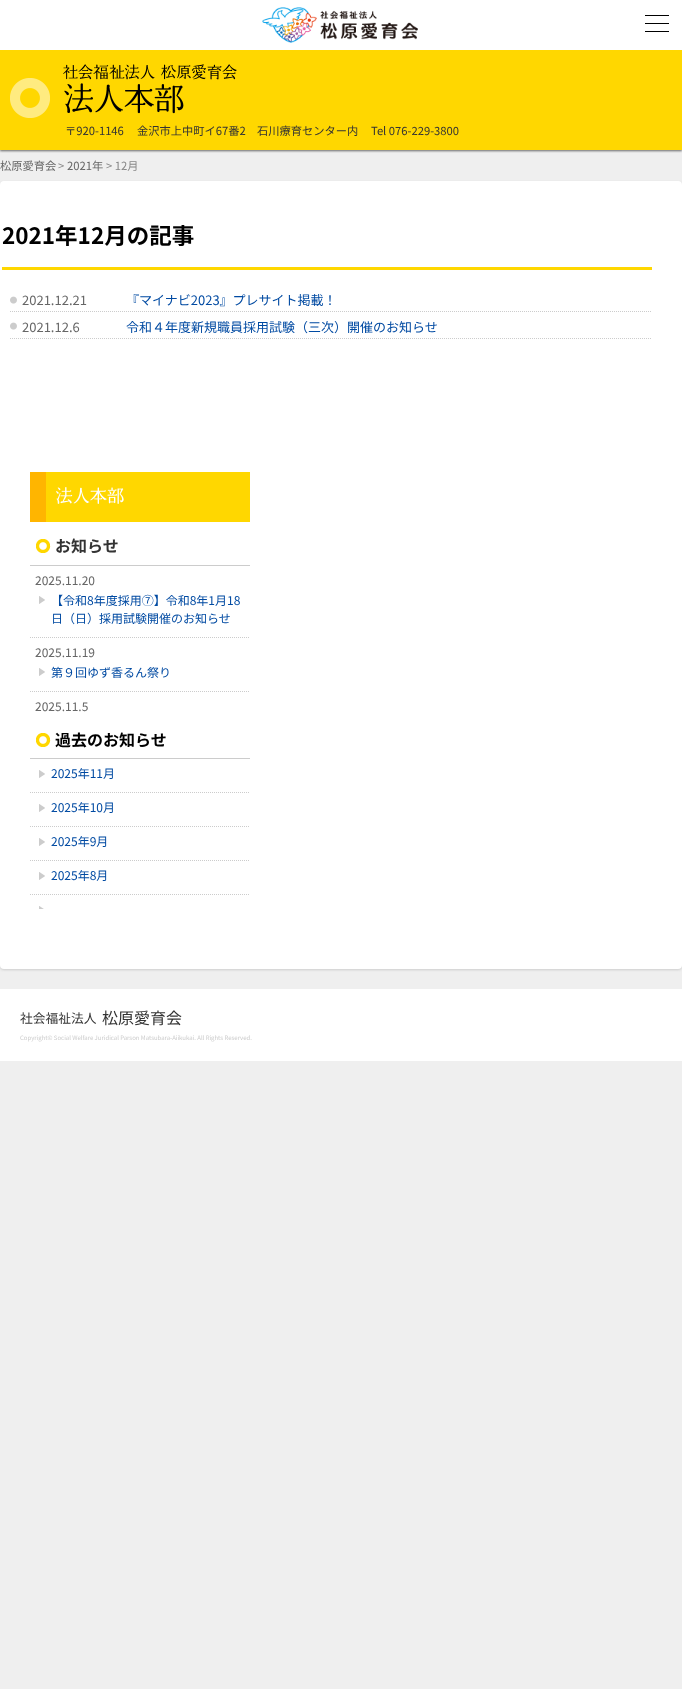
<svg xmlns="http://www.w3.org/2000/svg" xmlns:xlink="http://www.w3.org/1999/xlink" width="682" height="1689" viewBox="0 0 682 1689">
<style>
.cls-1{font:11.25px Noto Sans JP;fill:#333333}
.cls-2{font:11.25px Noto Sans JP;fill:#666666}
.cls-3{font:11.25px Noto Sans JP;fill:#888888}
.cls-4{font:bold 22.5px Noto Sans JP;fill:#000000}
.cls-5{font:13px Noto Sans JP;fill:#666666}
.cls-6{font:13px Noto Sans JP;fill:#004aa2}
.cls-7{font:bold 16px Noto Sans JP;fill:#333333}
.cls-8{font:12px Noto Sans JP;fill:#666666}
.cls-9{font:12px Noto Sans JP;fill:#004aa2}
.cls-10{font:bold 16px Noto Sans JP;fill:#000000}
.cls-11{font:12.75px Noto Sans JP;fill:#333333}
.cls-12{font:16px Noto Sans JP;fill:#333333}
.cls-13{font:6px Noto Sans JP;fill:#cccccc}
</style>
<rect width="100%" height="100%" fill="#efefef"/>
<rect fill="#666666" filter="blur(1px)" x="0" y="51" width="682" height="100"/>
<rect fill="#ffffff" x="0" y="0" width="682" height="50"/>
<image xlink:href="image0.png" x="262" y="7" width="156" height="36"/>
<rect fill="#000000" x="645" y="15" width="24" height="1"/>
<rect fill="#000000" x="645" y="23" width="24" height="1"/>
<rect fill="#000000" x="645" y="31" width="24" height="1"/>
<rect fill="#ffd700" x="0" y="50" width="682" height="100"/>
<image xlink:href="image1.png" x="10" y="64" width="227" height="54"/>
<rect fill="#cccccc" filter="blur(1px)" x="0" y="182" width="682" height="788" rx="4"/>
<rect fill="#ffffff" x="0" y="181" width="682" height="788" rx="4"/>
<rect fill="#ffd700" x="2" y="267" width="650" height="3"/>
<path fill="none" stroke="#cccccc" stroke-dasharray="1 1" d="M10 311.5H652"/>
<image xlink:href="image2.png" x="10" y="296" width="7" height="8"/>
<path fill="none" stroke="#cccccc" stroke-dasharray="1 1" d="M10 338.5H652"/>
<image xlink:href="image2.png" x="10" y="322" width="7" height="8"/>
<image xlink:href="image3.png" x="30" y="472" width="220" height="50"/>
<image xlink:href="image4.png" x="36" y="539" width="15" height="14"/>
<rect fill="#cccccc" x="30" y="565" width="220" height="1"/>
<path fill="none" stroke="#cccccc" stroke-dasharray="1 1" d="M30 637.5H250"/>
<image xlink:href="image5.png" x="39" y="596" width="6" height="8"/>
<path fill="none" stroke="#cccccc" stroke-dasharray="1 1" d="M30 691.5H250"/>
<image xlink:href="image5.png" x="39" y="668" width="6" height="8"/>
<image xlink:href="image4.png" x="36" y="733" width="15" height="14"/>
<rect fill="#cccccc" x="30" y="758" width="220" height="1"/>
<path fill="none" stroke="#cccccc" stroke-dasharray="1 1" d="M30 792.5H250"/>
<image xlink:href="image5.png" x="39" y="770" width="6" height="8"/>
<path fill="none" stroke="#cccccc" stroke-dasharray="1 1" d="M30 826.5H250"/>
<image xlink:href="image5.png" x="39" y="804" width="6" height="8"/>
<path fill="none" stroke="#cccccc" stroke-dasharray="1 1" d="M30 860.5H250"/>
<image xlink:href="image5.png" x="39" y="838" width="6" height="8"/>
<path fill="none" stroke="#cccccc" stroke-dasharray="1 1" d="M30 894.5H250"/>
<image xlink:href="image5.png" x="39" y="872" width="6" height="8"/>
<image xlink:href="image6.png" x="39" y="906" width="5" height="3"/>
<rect fill="#ffffff" x="0" y="989" width="682" height="72"/>
<text class="cls-1" x="65" y="135">〒920-1146</text>
<text class="cls-1" x="137" y="135">金沢市上中町イ67番2　石川療育センター内</text>
<text class="cls-1" x="371" y="135">Tel 076-229-3800</text>
<text class="cls-2" x="0" y="170">松原愛育会</text>
<text class="cls-3" x="58" y="170">&gt;</text>
<text class="cls-2" x="67" y="170">2021年</text>
<text class="cls-3" x="106" y="170">&gt; 12月</text>
<text class="cls-4" x="2" y="244">2021年12月の記事</text>
<text class="cls-5" x="22" y="305">2021.12.21</text>
<text class="cls-6" x="126" y="305">『マイナビ2023』プレサイト掲載！</text>
<text class="cls-5" x="22" y="332">2021.12.6</text>
<text class="cls-6" x="126" y="332">令和４年度新規職員採用試験（三次）開催のお知らせ</text>
<text class="cls-7" x="55" y="552">お知らせ</text>
<text class="cls-8" x="35" y="585">2025.11.20</text>
<text class="cls-9"><tspan x="51" y="605">【令和8年度採用⑦】令和8年1月18</tspan><tspan x="51" y="623">日（日）採用試験開催のお知らせ</tspan></text>
<text class="cls-8" x="35" y="657">2025.11.19</text>
<text class="cls-9" x="51" y="677">第９回ゆず香るん祭り</text>
<text class="cls-8" x="35" y="711">2025.11.5</text>
<text class="cls-10" x="55" y="746">過去のお知らせ</text>
<text class="cls-9" x="51" y="778">2025年11月</text>
<text class="cls-9" x="51" y="812">2025年10月</text>
<text class="cls-9" x="51" y="846">2025年9月</text>
<text class="cls-9" x="51" y="880">2025年8月</text>
<text class="cls-11" x="20" y="1023">社会福祉法人</text>
<text class="cls-12" x="102" y="1024">松原愛育会</text>
<text class="cls-13" x="20" y="1040">Copyright© Social Welfare Juridical Parson Matsubara-Aiikukai. All Rights Reserved.</text>
</svg>
